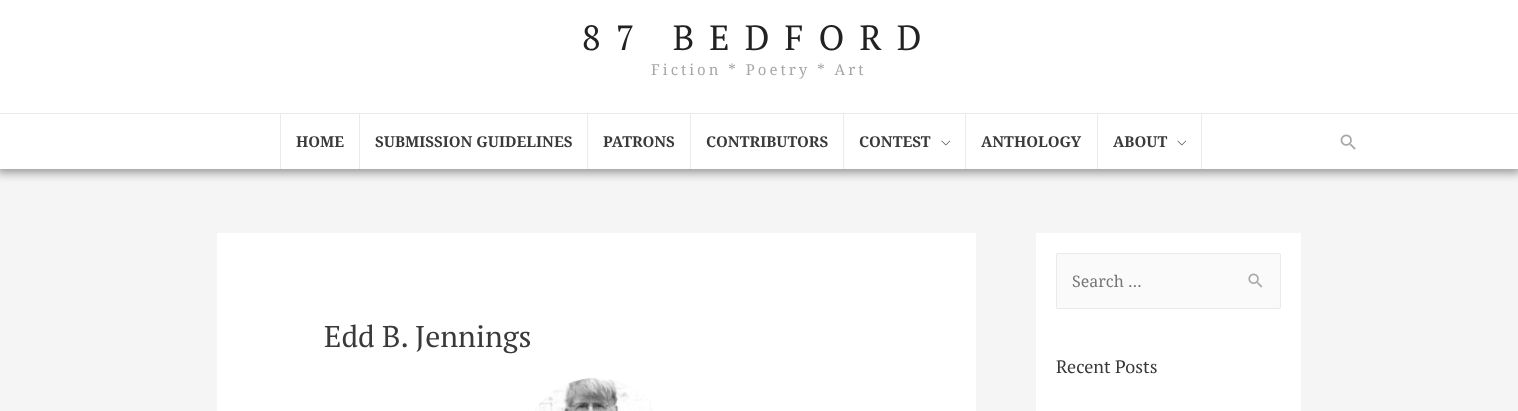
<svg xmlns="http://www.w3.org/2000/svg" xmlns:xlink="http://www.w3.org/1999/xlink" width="1518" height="411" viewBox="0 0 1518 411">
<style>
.cls-1{font:35px PT Serif;letter-spacing:15px;fill:#222222}
.cls-2{font:15px Noto Serif;letter-spacing:3px;fill:#a7a7a7}
.cls-3{font:bold 15px Noto Serif;fill:#3a3a3a}
.cls-4{font:30px PT Serif;fill:#3a3a3a}
.cls-5{font:16px Noto Serif;fill:#757575}
.cls-6{font:18px PT Serif;fill:#3a3a3a}
</style>
<rect width="100%" height="100%" fill="#f5f5f5"/>
<rect fill="#999999" filter="blur(5px)" x="-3" y="112" width="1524" height="61"/>
<rect fill="#ffffff" x="0" y="0" width="1518" height="113"/>
<rect fill="#eaeaea" x="0" y="113" width="1518" height="1"/>
<rect fill="#ffffff" x="0" y="114" width="1518" height="55"/>
<rect fill="#ebebeb" x="359" y="114" width="1" height="55"/>
<rect fill="#ebebeb" x="280" y="114" width="1" height="55"/>
<rect fill="#ebebeb" x="587" y="114" width="1" height="55"/>
<rect fill="#ebebeb" x="690" y="114" width="1" height="55"/>
<rect fill="#ebebeb" x="843" y="114" width="1" height="55"/>
<rect fill="#ebebeb" x="965" y="114" width="1" height="55"/>
<image xlink:href="image0.png" x="941" y="140" width="9" height="6"/>
<rect fill="#ebebeb" x="1097" y="114" width="1" height="55"/>
<rect fill="#ebebeb" x="1201" y="114" width="1" height="55"/>
<image xlink:href="image0.png" x="1177" y="140" width="9" height="6"/>
<image xlink:href="image1.png" x="1340" y="134" width="16" height="16"/>
<rect fill="#ffffff" x="217" y="233" width="759" height="178"/>
<image xlink:href="image2.png" x="535" y="378" width="118" height="33"/>
<rect fill="#ffffff" x="1036" y="233" width="265" height="178"/>
<rect fill="#fafafa" stroke="#eaeaea" x="1056.5" y="253.5" width="224" height="55" rx="1.5"/>
<image xlink:href="image3.png" x="1248" y="273" width="15" height="15"/>
<text class="cls-1" x="582" y="50">87 BEDFORD</text>
<text class="cls-2" x="651" y="75">Fiction * Poetry * Art</text>
<text class="cls-3" x="296" y="147">HOME</text>
<text class="cls-3" x="375" y="147">SUBMISSION GUIDELINES</text>
<text class="cls-3" x="603" y="147">PATRONS</text>
<text class="cls-3" x="706" y="147">CONTRIBUTORS</text>
<text class="cls-3" x="859" y="147">CONTEST</text>
<text class="cls-3" x="981" y="147">ANTHOLOGY</text>
<text class="cls-3" x="1113" y="147">ABOUT</text>
<text class="cls-4" x="324" y="347">Edd B. Jennings</text>
<text class="cls-5" x="1072" y="287">Search …</text>
<text class="cls-6" x="1056" y="373">Recent Posts</text>
</svg>
